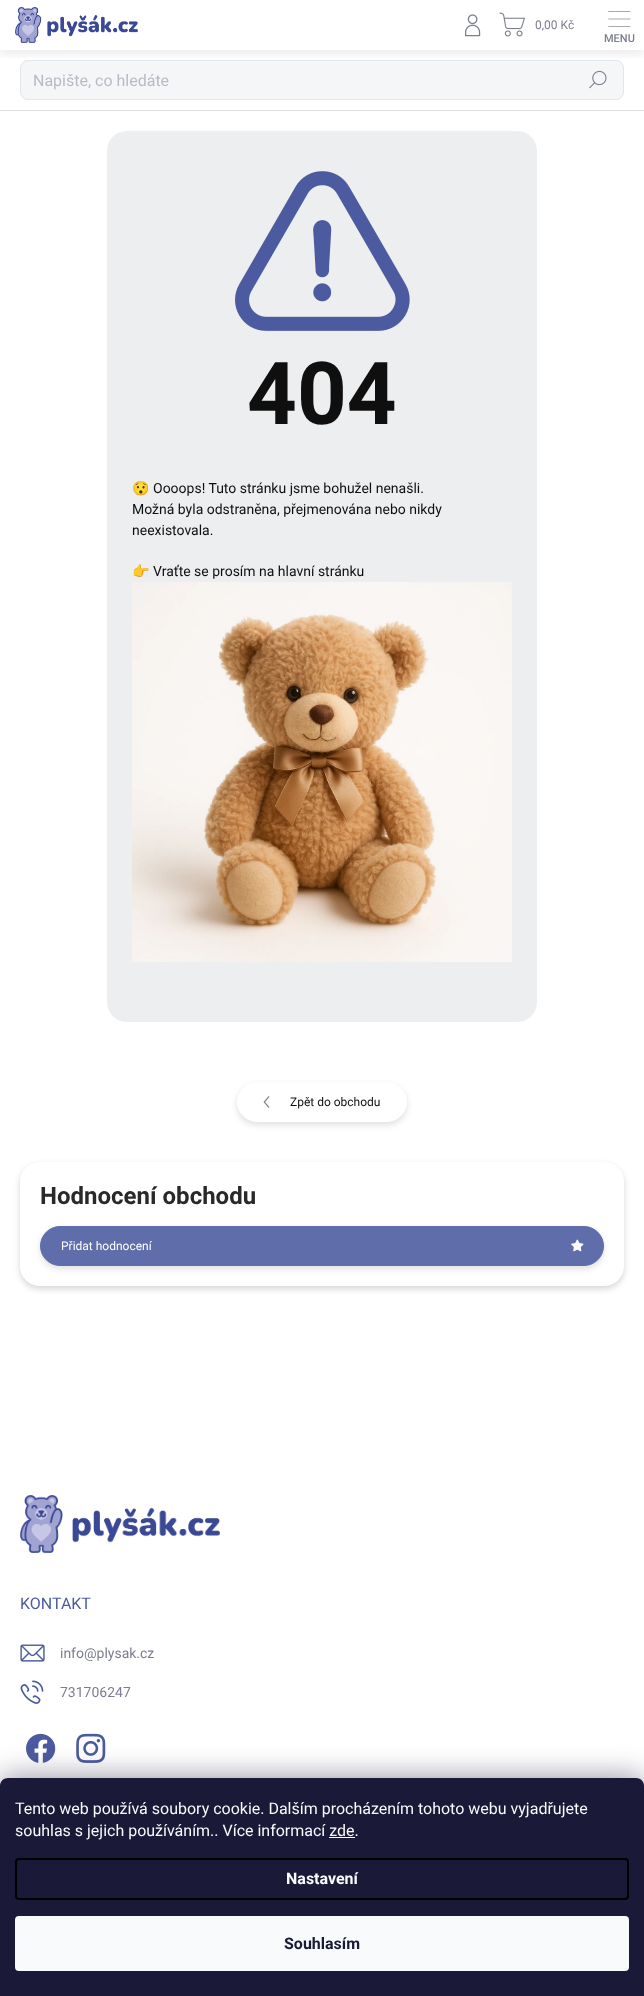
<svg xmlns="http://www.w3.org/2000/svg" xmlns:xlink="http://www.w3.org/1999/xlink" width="644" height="1996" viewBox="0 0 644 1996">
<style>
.cls-1{font:12px Roboto;fill:#7c7e8f}
.cls-2{font:500 11px Roboto;fill:#7c7e8f}
.cls-3{font:16px Roboto;fill:#b9bac4}
.cls-4{font:bold 87px Roboto;fill:#0f0f0f}
.cls-5{font:14px Noto Color Emoji;fill:#0f0f0f}
.cls-6{font:14px Roboto;fill:#0f0f0f}
.cls-7{font:12px Roboto;fill:#0f0f0f}
.cls-8{font:bold 24px Roboto;fill:#292929}
.cls-9{font:12px Roboto;fill:#ffffff}
.cls-10{font:16px Roboto;fill:#4c5ba0}
.cls-11{font:14px Roboto;fill:#7c7e8f}
.cls-12{font:16px Roboto;fill:#f8fafb}
.cls-13{font:bold 16px Roboto;fill:#f8fafb}
.cls-14{font:bold 16px Roboto;fill:#1a1937}
</style>
<defs>
<clipPath id="clip1"><rect x="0" y="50" width="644" height="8"/></clipPath>
</defs>
<rect width="100%" height="100%" fill="#ffffff"/>
<rect fill="#f5f6f8" stroke="#e0e5ee" x="20.5" y="60.5" width="603" height="39" rx="7.5"/>
<image xlink:href="image4.png" x="589" y="70" width="18" height="19"/>
<g clip-path="url(#clip1)">
<rect fill="#000000" fill-opacity="0.07" filter="blur(5px)" x="0" y="5" width="644" height="50"/>
</g>
<image xlink:href="image0.png" x="15" y="7" width="123" height="36"/>
<image xlink:href="image1.png" x="465" y="14" width="16" height="23"/>
<image xlink:href="image2.png" x="499" y="12" width="26" height="25"/>
<image xlink:href="image3.png" x="608" y="11" width="23" height="16"/>
<rect fill="#dfdfe2" x="0" y="110" width="644" height="1"/>
<rect fill="#edeef0" x="107" y="131" width="430" height="891" rx="20"/>
<image xlink:href="image5.png" x="235" y="171" width="175" height="160"/>
<image xlink:href="image6.png" x="132" y="582" width="380" height="380"/>
<rect fill="#000000" fill-opacity="0.12" filter="blur(3px)" x="237" y="1085" width="170" height="40" rx="20"/>
<rect fill="#ffffff" stroke="#ffffff" x="237.5" y="1082.5" width="169" height="39" rx="19.5"/>
<image xlink:href="image7.png" x="263" y="1096" width="7" height="12"/>
<rect fill="#000000" fill-opacity="0.16" filter="blur(3px)" x="20" y="1165" width="604" height="124" rx="20"/>
<rect fill="#ffffff" x="20" y="1162" width="604" height="124" rx="20"/>
<rect fill="#000000" fill-opacity="0.12" filter="blur(3px)" x="40" y="1229" width="564" height="40" rx="20"/>
<rect fill="#606dab" stroke="#606dab" x="40.5" y="1226.5" width="563" height="39" rx="19.5"/>
<image xlink:href="image8.png" x="571" y="1239" width="13" height="13"/>
<image xlink:href="image9.png" x="20" y="1495" width="200" height="58"/>
<image xlink:href="image10.png" x="20" y="1644" width="25" height="18"/>
<image xlink:href="image11.png" x="20" y="1680" width="24" height="24"/>
<image xlink:href="image12.png" x="26" y="1733" width="30" height="30"/>
<image xlink:href="image13.png" x="76" y="1733" width="30" height="30"/>
<rect fill="#1b1939" fill-opacity="0.5" filter="blur(15px)" x="0" y="1778" width="644" height="218" rx="8"/>
<path fill="#1a1937" d="M8 1778H636C640.5 1778 644 1781.5 644 1786V1996H0V1786C0 1781.5 3.5 1778 8 1778Z"/>
<rect fill="#f8fafb" x="329" y="1837" width="26" height="1"/>
<rect fill="none" stroke="#000000" stroke-width="2" x="16" y="1859" width="612" height="40" rx="3"/>
<rect fill="#f8fafb" x="15" y="1916" width="614" height="55" rx="4"/>
<text class="cls-1" x="535" y="29">0,00 Kč</text>
<text class="cls-2" x="604" y="42">MENU</text>
<text class="cls-3" x="33" y="86">Napište, co hledáte</text>
<text class="cls-4" x="247" y="424">404</text>
<text class="cls-5" x="132" y="493">😯</text>
<text class="cls-6" x="153" y="493">Oooops! Tuto stránku jsme bohužel nenašli.</text>
<text class="cls-6"><tspan x="132" y="514">Možná byla odstraněna, přejmenována nebo nikdy</tspan><tspan x="132" y="535">neexistovala.</tspan></text>
<text class="cls-5" x="132" y="576">👉</text>
<text class="cls-6" x="153" y="576">Vraťte se prosím na hlavní stránku</text>
<text class="cls-7" x="290" y="1106">Zpět do obchodu</text>
<text class="cls-8" x="40" y="1204">Hodnocení obchodu</text>
<text class="cls-9" x="61" y="1250">Přidat hodnocení</text>
<text class="cls-10" x="20" y="1609">KONTAKT</text>
<text class="cls-11" x="60" y="1658">info@plysak.cz</text>
<text class="cls-11" x="60" y="1697">731706247</text>
<text class="cls-12"><tspan x="15" y="1814">Tento web používá soubory cookie. Dalším procházením tohoto webu vyjadřujete</tspan><tspan x="15" y="1836">souhlas s jejich používáním.. Více informací zde.</tspan></text>
<text class="cls-13" x="286" y="1884">Nastavení</text>
<text class="cls-14" x="284" y="1949">Souhlasím</text>
</svg>
